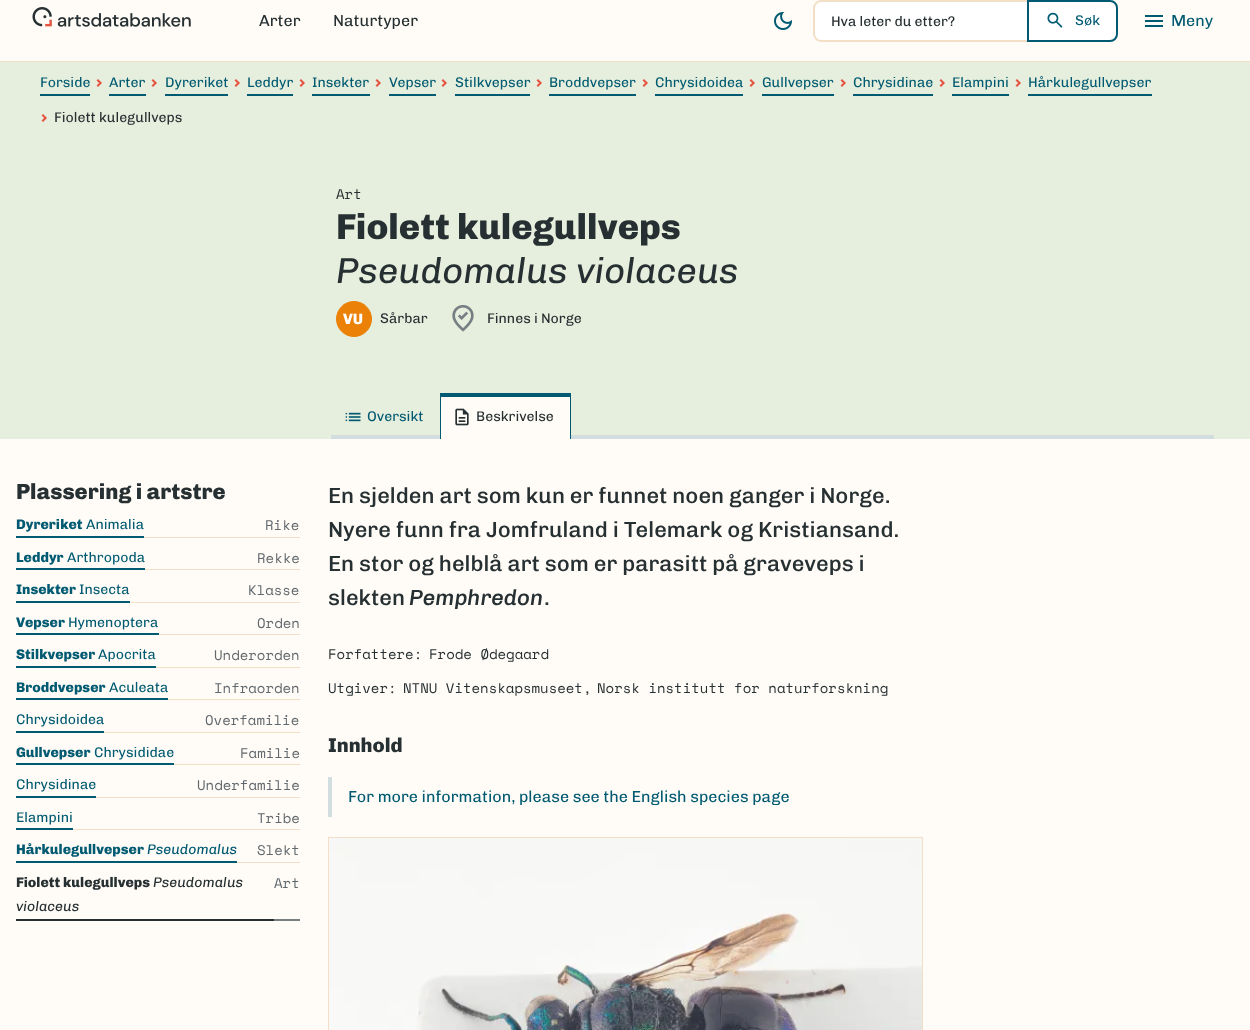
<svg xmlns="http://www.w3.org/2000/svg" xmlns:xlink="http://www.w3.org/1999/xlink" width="1250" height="1030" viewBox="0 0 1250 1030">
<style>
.cls-1{font:16px Chivo;fill:#262f31}
.cls-2{font:14px Chivo;fill:#262f31}
.cls-3{font:14px Chivo;fill:#005a71}
.cls-4{font:16px Chivo;fill:#005a71}
.cls-5{font:14px Space Mono;fill:#262f31}
.cls-6{font:800 36px Chivo;fill:#262f31}
.cls-7{font:italic 36px Chivo;fill:#262f31}
.cls-8{font:800 15px Chivo;fill:#ffffff}
.cls-9{font:800 22px Chivo;fill:#262f31}
.cls-10{font:800 14px Chivo;fill:#005a71}
.cls-11{font:14px Space Mono;fill:#61686d}
.cls-12{font:italic 14px Chivo;fill:#005a71}
.cls-13{font:800 14px Chivo;fill:#262f31}
.cls-14{font:italic 14px Chivo;fill:#262f31}
.cls-15{font:500 22px Chivo;fill:#262f31}
.cls-16{font:italic 500 22px Chivo;fill:#262f31}
.cls-17{font:800 20px Chivo;fill:#262f31}
</style>
<rect width="100%" height="100%" fill="#fffcf7"/>
<rect fill="#f2dfc5" x="0" y="61" width="1250" height="1"/>
<image xlink:href="image0.png" x="32" y="7" width="159" height="20"/>
<image xlink:href="image1.png" x="774" y="12" width="18" height="18"/>
<path fill="#ffffff" d="M821 0H1029V42H821C816.5 42 813 38.5 813 34V8C813 3.5 816.5 0 821 0Z"/>
<path fill="#f2dfc5" fill-rule="evenodd" d="M821 0H1029V42H821C817 42 813 38 813 34V8C813 4 817 0 821 0ZM821 2H1029V40H821C818 40 815 37 815 34V8C815 5 818 2 821 2Z"/>
<path fill="#ffffff" stroke="#005a71" stroke-width="2" d="M1028 1H1110C1114 1 1117 4 1117 8V34C1117 38 1114 41 1110 41H1028Z"/>
<image xlink:href="image2.png" x="1047" y="12" width="16" height="16"/>
<image xlink:href="image3.png" x="1145" y="15" width="18" height="12"/>
<rect fill="#e6eedd" x="0" y="62" width="1250" height="377"/>
<rect fill="#005a71" x="40" y="94" width="50" height="2"/>
<image xlink:href="image4.png" x="96" y="79" width="6" height="8"/>
<rect fill="#005a71" x="109" y="94" width="37" height="2"/>
<image xlink:href="image4.png" x="151" y="79" width="6" height="8"/>
<rect fill="#005a71" x="165" y="94" width="63" height="2"/>
<image xlink:href="image4.png" x="234" y="79" width="6" height="8"/>
<rect fill="#005a71" x="247" y="94" width="46" height="2"/>
<image xlink:href="image4.png" x="299" y="79" width="6" height="8"/>
<rect fill="#005a71" x="312" y="94" width="58" height="2"/>
<image xlink:href="image4.png" x="375" y="79" width="6" height="8"/>
<rect fill="#005a71" x="389" y="94" width="47" height="2"/>
<image xlink:href="image4.png" x="441" y="79" width="6" height="8"/>
<rect fill="#005a71" x="455" y="94" width="75" height="2"/>
<image xlink:href="image4.png" x="536" y="79" width="6" height="8"/>
<rect fill="#005a71" x="549" y="94" width="87" height="2"/>
<image xlink:href="image4.png" x="642" y="79" width="6" height="8"/>
<rect fill="#005a71" x="655" y="94" width="88" height="2"/>
<image xlink:href="image4.png" x="749" y="79" width="6" height="8"/>
<rect fill="#005a71" x="762" y="94" width="72" height="2"/>
<image xlink:href="image4.png" x="840" y="79" width="6" height="8"/>
<rect fill="#005a71" x="853" y="94" width="80" height="2"/>
<image xlink:href="image4.png" x="939" y="79" width="6" height="8"/>
<rect fill="#005a71" x="952" y="94" width="57" height="2"/>
<image xlink:href="image4.png" x="1015" y="79" width="6" height="8"/>
<rect fill="#005a71" x="1028" y="94" width="124" height="2"/>
<image xlink:href="image4.png" x="41" y="114" width="6" height="8"/>
<circle fill="#eb8107" stroke="#eb8107" cx="354" cy="319" r="17.5"/>
<image xlink:href="image5.png" x="452" y="305" width="22" height="27"/>
<rect fill="#d2dde0" x="331" y="435" width="883" height="4"/>
<image xlink:href="image6.png" x="345" y="412" width="16" height="10"/>
<rect fill="#fffcf7" x="441" y="397" width="129" height="42"/>
<rect fill="#005a71" x="440" y="393" width="131" height="4"/>
<rect fill="#005a71" x="570" y="393" width="1" height="46"/>
<rect fill="#005a71" x="440" y="393" width="1" height="46"/>
<image xlink:href="image7.png" x="455" y="408" width="14" height="18"/>
<rect fill="#f2dfc5" x="144" y="537" width="156" height="1"/>
<rect fill="#005a71" x="16" y="536" width="128" height="2"/>
<rect fill="#f2dfc5" x="145" y="569" width="155" height="1"/>
<rect fill="#005a71" x="16" y="568" width="129" height="2"/>
<rect fill="#f2dfc5" x="130" y="602" width="170" height="1"/>
<rect fill="#005a71" x="16" y="601" width="114" height="2"/>
<rect fill="#f2dfc5" x="159" y="634" width="141" height="1"/>
<rect fill="#005a71" x="16" y="633" width="143" height="2"/>
<rect fill="#f2dfc5" x="156" y="667" width="144" height="1"/>
<rect fill="#005a71" x="16" y="666" width="140" height="2"/>
<rect fill="#f2dfc5" x="168" y="699" width="132" height="1"/>
<rect fill="#005a71" x="16" y="698" width="152" height="2"/>
<rect fill="#f2dfc5" x="104" y="732" width="196" height="1"/>
<rect fill="#005a71" x="16" y="731" width="88" height="2"/>
<rect fill="#f2dfc5" x="174" y="764" width="126" height="1"/>
<rect fill="#005a71" x="16" y="763" width="158" height="2"/>
<rect fill="#f2dfc5" x="96" y="797" width="204" height="1"/>
<rect fill="#005a71" x="16" y="796" width="80" height="2"/>
<rect fill="#f2dfc5" x="73" y="829" width="227" height="1"/>
<rect fill="#005a71" x="16" y="828" width="57" height="2"/>
<rect fill="#f2dfc5" x="237" y="862" width="63" height="1"/>
<rect fill="#005a71" x="16" y="861" width="221" height="2"/>
<rect fill="#768083" x="274" y="919" width="26" height="2"/>
<rect fill="#262f31" x="16" y="919" width="258" height="2"/>
<rect fill="#d2dde0" x="328" y="777" width="4" height="40"/>
<rect fill="none" stroke="#f2dfc5" x="328.5" y="837.5" width="594" height="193"/>
<image xlink:href="image8.png" x="329" y="838" width="593" height="192"/>
<text class="cls-1" x="259" y="26">Arter</text>
<text class="cls-1" x="333" y="26">Naturtyper</text>
<text class="cls-2" x="831" y="26">Hva leter du etter?</text>
<text class="cls-3" x="1075" y="25">Søk</text>
<text class="cls-4" x="1171" y="26">Meny</text>
<text class="cls-3" x="40" y="87">Forside</text>
<text class="cls-3" x="109" y="87">Arter</text>
<text class="cls-3" x="165" y="87">Dyreriket</text>
<text class="cls-3" x="247" y="87">Leddyr</text>
<text class="cls-3" x="312" y="87">Insekter</text>
<text class="cls-3" x="389" y="87">Vepser</text>
<text class="cls-3" x="455" y="87">Stilkvepser</text>
<text class="cls-3" x="549" y="87">Broddvepser</text>
<text class="cls-3" x="655" y="87">Chrysidoidea</text>
<text class="cls-3" x="762" y="87">Gullvepser</text>
<text class="cls-3" x="853" y="87">Chrysidinae</text>
<text class="cls-3" x="952" y="87">Elampini</text>
<text class="cls-3" x="1028" y="87">Hårkulegullvepser</text>
<text class="cls-2" x="54" y="122">Fiolett kulegullveps</text>
<text class="cls-5" x="336" y="199">Art</text>
<text class="cls-6" x="336" y="239">Fiolett kulegullveps</text>
<text class="cls-7" x="336" y="283">Pseudomalus violaceus</text>
<text class="cls-8" x="343" y="324">VU</text>
<text class="cls-2" x="380" y="323">Sårbar</text>
<text class="cls-2" x="487" y="323">Finnes i Norge</text>
<text class="cls-3" x="367" y="421">Oversikt</text>
<text class="cls-2" x="476" y="421">Beskrivelse</text>
<text class="cls-9" x="16" y="499">Plassering i artstre</text>
<text class="cls-10" x="16" y="529">Dyreriket</text>
<text class="cls-3" x="86" y="529">Animalia</text>
<text class="cls-11" x="265" y="530">Rike</text>
<text class="cls-10" x="16" y="562">Leddyr</text>
<text class="cls-3" x="67" y="562">Arthropoda</text>
<text class="cls-11" x="257" y="563">Rekke</text>
<text class="cls-10" x="16" y="594">Insekter</text>
<text class="cls-3" x="79" y="594">Insecta</text>
<text class="cls-11" x="248" y="595">Klasse</text>
<text class="cls-10" x="16" y="627">Vepser</text>
<text class="cls-3" x="68" y="627">Hymenoptera</text>
<text class="cls-11" x="257" y="628">Orden</text>
<text class="cls-10" x="16" y="659">Stilkvepser</text>
<text class="cls-3" x="98" y="659">Apocrita</text>
<text class="cls-11" x="214" y="660">Underorden</text>
<text class="cls-10" x="16" y="692">Broddvepser</text>
<text class="cls-3" x="109" y="692">Aculeata</text>
<text class="cls-11" x="214" y="693">Infraorden</text>
<text class="cls-3" x="16" y="724">Chrysidoidea</text>
<text class="cls-11" x="205" y="725">Overfamilie</text>
<text class="cls-10" x="16" y="757">Gullvepser</text>
<text class="cls-3" x="94" y="757">Chrysididae</text>
<text class="cls-11" x="240" y="758">Familie</text>
<text class="cls-3" x="16" y="789">Chrysidinae</text>
<text class="cls-11" x="197" y="790">Underfamilie</text>
<text class="cls-3" x="16" y="822">Elampini</text>
<text class="cls-11" x="257" y="823">Tribe</text>
<text class="cls-10" x="16" y="854">Hårkulegullvepser</text>
<text class="cls-12" x="147" y="854">Pseudomalus</text>
<text class="cls-11" x="257" y="855">Slekt</text>
<text class="cls-13" x="16" y="887">Fiolett kulegullveps</text>
<text class="cls-14" x="153" y="887">Pseudomalus</text>
<text class="cls-14" x="16" y="911">violaceus</text>
<text class="cls-11" x="274" y="888">Art</text>
<text class="cls-15"><tspan x="328" y="503">En sjelden art som kun er funnet noen ganger i Norge.</tspan><tspan x="328" y="537">Nyere funn fra Jomfruland i Telemark og Kristiansand.</tspan><tspan x="328" y="571">En stor og helblå art som er parasitt på graveveps i</tspan><tspan x="328" y="605">slekten</tspan></text>
<text class="cls-16" x="409" y="605">Pemphredon</text>
<text class="cls-15" x="544" y="605">.</text>
<text class="cls-5" x="328" y="659">Forfattere:</text>
<text class="cls-5" x="429" y="659">Frode Ødegaard</text>
<text class="cls-5" x="328" y="693">Utgiver:</text>
<text class="cls-5" x="403" y="693">NTNU Vitenskapsmuseet,</text>
<text class="cls-5" x="597" y="693">Norsk institutt for naturforskning</text>
<text class="cls-17" x="328" y="752">Innhold</text>
<text class="cls-4" x="348" y="802">For more information, please see the English species page</text>
</svg>
